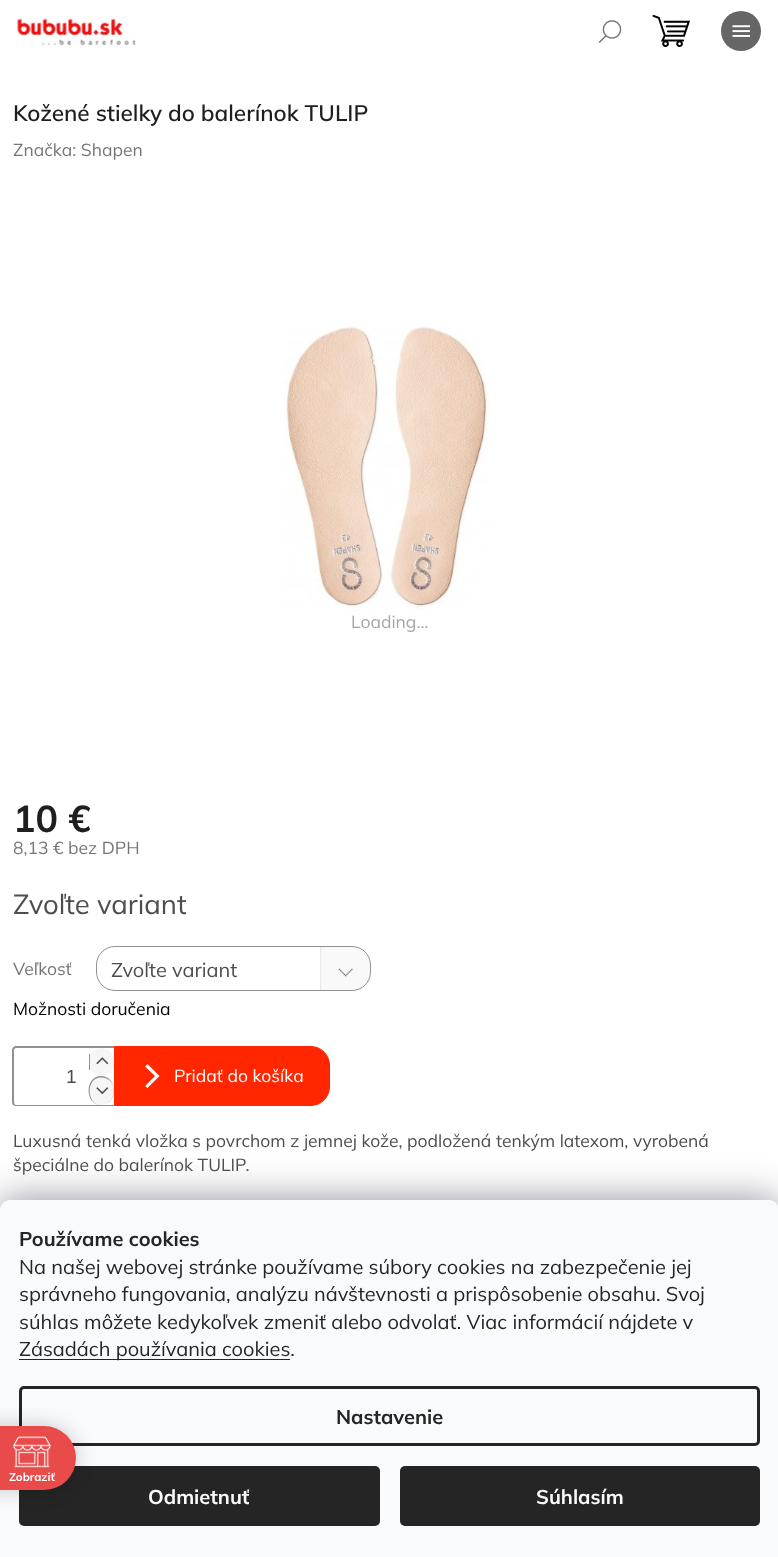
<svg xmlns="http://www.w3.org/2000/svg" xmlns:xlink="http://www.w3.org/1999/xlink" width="778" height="1557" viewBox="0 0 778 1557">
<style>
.cls-1{font:600 22.5px Mulish;fill:#1f1f1f}
.cls-2{font:17.5px Mulish;fill:#767676}
.cls-3{font:17.5px Mulish;fill:#a6a6a6}
.cls-4{font:bold 37.5px Mulish;fill:#1f1f1f}
.cls-5{font:27.5px Mulish;fill:#4d4d4d}
.cls-6{font:20px Mulish;fill:#4d4d4d}
.cls-7{font:17.5px Mulish;fill:#000000}
.cls-8{font:19px Liberation Sans;fill:#4d4d4d}
.cls-9{font:17.5px Mulish;fill:#ffffff}
.cls-10{font:17.5px Mulish;fill:#4d4d4d}
.cls-11{font:bold 20px Mulish;fill:#252525}
.cls-12{font:20px Mulish;fill:#252525}
.cls-13{font:bold 20px Mulish;fill:#f8fafb}
.cls-14{font:bold 11.5px Mulish;fill:#ffffff}
</style>
<rect width="100%" height="100%" fill="#ffffff"/>
<image xlink:href="image0.png" x="598" y="20" width="24" height="23"/>
<circle fill="#666666" cx="741" cy="31" r="20"/>
<image xlink:href="image1.png" x="732" y="25" width="18" height="12"/>
<image xlink:href="image2.png" x="17" y="18" width="119" height="28"/>
<image xlink:href="image3.png" x="652" y="14" width="38" height="33"/>
<image xlink:href="image4.png" x="284" y="326" width="207" height="284"/>
<image xlink:href="image5.png" x="320" y="946" width="50" height="45"/>
<rect fill="none" stroke="#919191" x="96.5" y="946.5" width="274" height="44" rx="18.5"/>
<path fill="#919191" fill-rule="evenodd" d="M16 1046H114V1106H16C14 1106 12 1105 12 1102V1050C12 1048 14 1046 16 1046ZM16 1048H114V1105H16C15 1105 14 1104 14 1102V1050C14 1049 15 1048 16 1048Z"/>
<rect fill="#f6f6f6" x="89" y="1048" width="25" height="28" rx="12.5"/>
<rect fill="#919191" x="89" y="1054" width="1" height="16"/>
<image xlink:href="image6.png" x="96" y="1057" width="13" height="8"/>
<rect fill="#f6f6f6" x="89" y="1076" width="25" height="29" rx="12.5"/>
<path fill="#919191" fill-rule="evenodd" d="M101 1076C118 1076 118 1105 101 1105C84.5 1105 84.5 1076 101 1076ZM101 1077.5C119 1077.5 117.5 1105 101 1105C86.5 1105 85.5 1077.5 101 1077.5Z"/>
<image xlink:href="image7.png" x="96" y="1087" width="13" height="8"/>
<path fill="#ff2600" stroke="#ff2600" d="M114.5 1046.5H311C321 1046.5 329.5 1055 329.5 1065V1087C329.5 1097 321 1105.5 311 1105.5H114.5Z"/>
<path fill="#ffffff" d="M147.5 1088L145 1086L155 1076L145 1066.5L147.5 1064L159.5 1076Z"/>
<rect fill="#1b1939" fill-opacity="0.5" filter="blur(19px)" x="0" y="1200" width="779" height="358" rx="10"/>
<path fill="#f8fafb" d="M10 1200H769C774.5 1200 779 1204.5 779 1210V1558H0V1210C0 1204.5 4.5 1200 10 1200Z"/>
<rect fill="#252525" x="19" y="1359" width="271" height="1"/>
<rect fill="none" stroke="#252525" stroke-width="3" x="20.5" y="1387.5" width="738" height="57" rx="3.5"/>
<rect fill="#252525" x="19" y="1466" width="361" height="60" rx="5"/>
<rect fill="#252525" x="400" y="1466" width="360" height="60" rx="5"/>
<rect fill="#000000" fill-opacity="0.2" filter="blur(9.5px)" x="-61" y="1426" width="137" height="64" rx="32"/>
<rect fill="#e94b4b" x="-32" y="1426" width="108" height="64" rx="32"/>
<image xlink:href="image8.png" x="12" y="1436" width="39" height="32"/>
<text class="cls-1" x="13" y="121">Kožené stielky do balerínok TULIP</text>
<text class="cls-2" x="13" y="156">Značka: Shapen</text>
<text class="cls-3" x="351" y="628">Loading...</text>
<text class="cls-4" x="13" y="832">10 €</text>
<text class="cls-2" x="13" y="854">8,13 € bez DPH</text>
<text class="cls-5" x="13" y="914">Zvoľte variant</text>
<text class="cls-2" x="13" y="975">Veľkosť</text>
<text class="cls-6" x="111" y="977">Zvoľte variant</text>
<text class="cls-7" x="13" y="1015">Možnosti doručenia</text>
<text class="cls-8" x="66" y="1083">1</text>
<text class="cls-9" x="174" y="1082">Pridať do košíka</text>
<text class="cls-10"><tspan x="13" y="1147">Luxusná tenká vložka s povrchom z jemnej kože, podložená tenkým latexom, vyrobená</tspan><tspan x="13" y="1171">špeciálne do balerínok TULIP.</tspan></text>
<text class="cls-11" x="19" y="1246">Používame cookies</text>
<text class="cls-12"><tspan x="19" y="1274">Na našej webovej stránke používame súbory cookies na zabezpečenie jej</tspan><tspan x="19" y="1301">správneho fungovania, analýzu návštevnosti a prispôsobenie obsahu. Svoj</tspan><tspan x="19" y="1329">súhlas môžete kedykoľvek zmeniť alebo odvolať. Viac informácií nájdete v</tspan><tspan x="19" y="1356">Zásadách používania cookies.</tspan></text>
<text class="cls-11" x="336" y="1424">Nastavenie</text>
<text class="cls-13" x="148" y="1504">Odmietnuť</text>
<text class="cls-13" x="536" y="1504">Súhlasím</text>
<text class="cls-14" x="9" y="1481">Zobraziť</text>
</svg>
